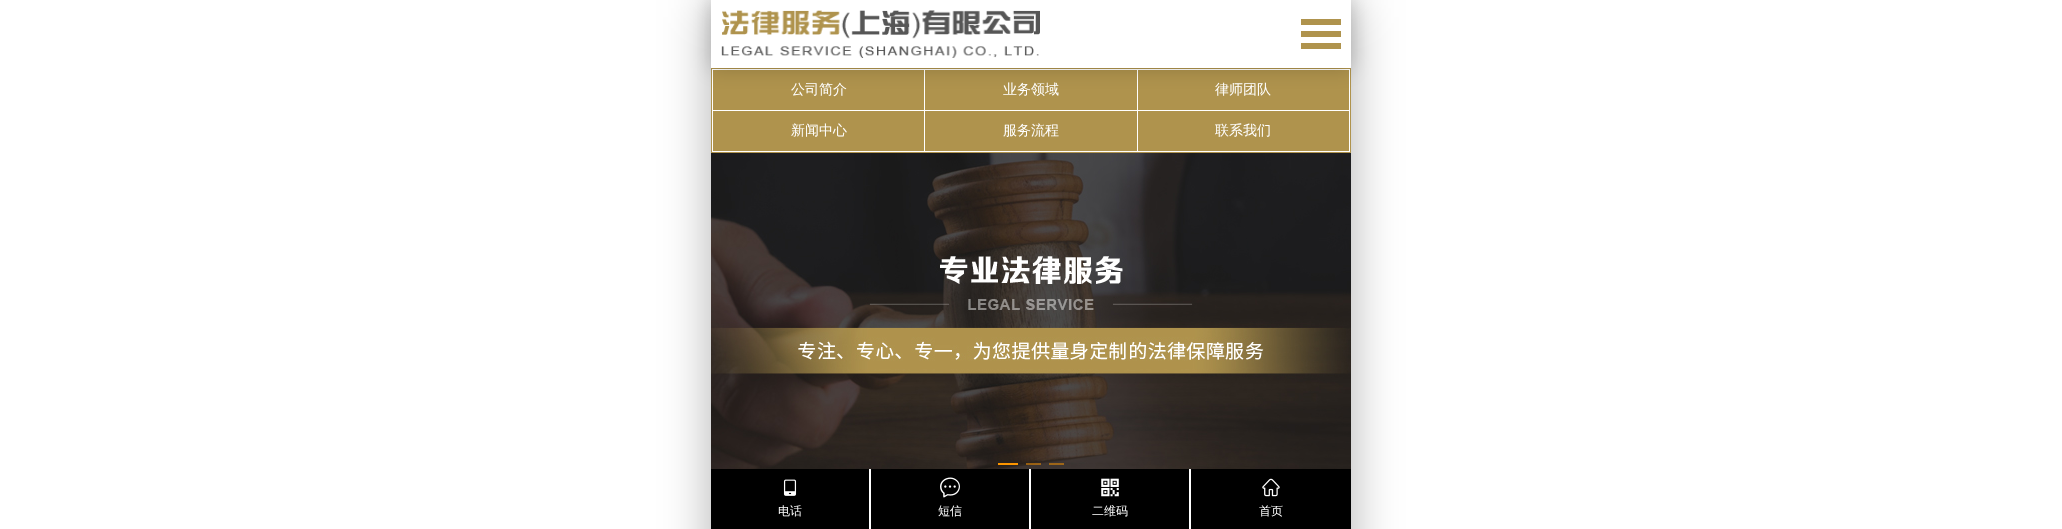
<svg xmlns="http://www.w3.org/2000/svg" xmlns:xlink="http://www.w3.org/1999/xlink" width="2062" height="529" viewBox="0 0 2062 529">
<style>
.cls-1{font:500 14px WenQuanYi Zen Hei;fill:#ffffff}
.cls-2{font:500 12px WenQuanYi Zen Hei;fill:#ffffff}
</style>
<defs>
<clipPath id="clip1"><path d="M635 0H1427V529H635ZM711 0H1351V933H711Z" clip-rule="evenodd"/></clipPath>
<clipPath id="clip2"><path d="M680 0H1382V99H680ZM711 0H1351V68H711Z" clip-rule="evenodd"/></clipPath>
</defs>
<rect width="100%" height="100%" fill="#ffffff"/>
<g clip-path="url(#clip1)">
<rect fill="#000000" fill-opacity="0.3" filter="blur(25px)" x="711" y="0" width="640" height="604"/>
</g>
<rect fill="#af934d" x="711" y="68" width="640" height="85"/>
<rect fill="#ffffff" x="712" y="69" width="638" height="1"/>
<rect fill="#ffffff" x="712" y="69" width="1" height="83"/>
<rect fill="#ffffff" x="924" y="70" width="1" height="82"/>
<rect fill="#ffffff" x="1137" y="70" width="1" height="82"/>
<rect fill="#ffffff" x="1349" y="70" width="1" height="82"/>
<g clip-path="url(#clip2)">
<rect fill="#000000" fill-opacity="0.2" filter="blur(10px)" x="711" y="0" width="640" height="68"/>
</g>
<image xlink:href="image0.png" x="721" y="10" width="319" height="48"/>
<rect fill="#af934d" x="1301" y="19" width="40" height="6"/>
<rect fill="#af934d" x="1301" y="31" width="40" height="6"/>
<rect fill="#af934d" x="1301" y="43" width="40" height="6"/>
<rect fill="#ffffff" x="713" y="110" width="212" height="1"/>
<rect fill="#ffffff" x="925" y="110" width="213" height="1"/>
<rect fill="#ffffff" x="1138" y="110" width="212" height="1"/>
<rect fill="#ffffff" x="713" y="151" width="637" height="1"/>
<image xlink:href="image1.png" x="711" y="153" width="640" height="316"/>
<rect fill="#fd9500" x="998" y="463" width="20" height="2"/>
<rect fill="#fd9500" fill-opacity="0.5" x="1026" y="463" width="15" height="2"/>
<rect fill="#fd9500" fill-opacity="0.5" x="1049" y="463" width="15" height="2"/>
<rect fill="#000000" x="711" y="469" width="640" height="60"/>
<rect fill="#ffffff" x="869" y="469" width="2" height="60"/>
<image xlink:href="image2.png" x="783" y="479" width="14" height="17"/>
<rect fill="#ffffff" x="1029" y="469" width="2" height="60"/>
<image xlink:href="image3.png" x="940" y="477" width="20" height="21"/>
<rect fill="#ffffff" x="1189" y="469" width="2" height="60"/>
<image xlink:href="image4.png" x="1101" y="478" width="18" height="19"/>
<image xlink:href="image5.png" x="1262" y="478" width="18" height="19"/>
<text class="cls-1" x="791" y="94">公司简介</text>
<text class="cls-1" x="1003" y="94">业务领域</text>
<text class="cls-1" x="1215" y="94">律师团队</text>
<text class="cls-1" x="791" y="135">新闻中心</text>
<text class="cls-1" x="1003" y="135">服务流程</text>
<text class="cls-1" x="1215" y="135">联系我们</text>
<text class="cls-2" x="778" y="515">电话</text>
<text class="cls-2" x="938" y="515">短信</text>
<text class="cls-2" x="1092" y="515">二维码</text>
<text class="cls-2" x="1259" y="515">首页</text>
</svg>
